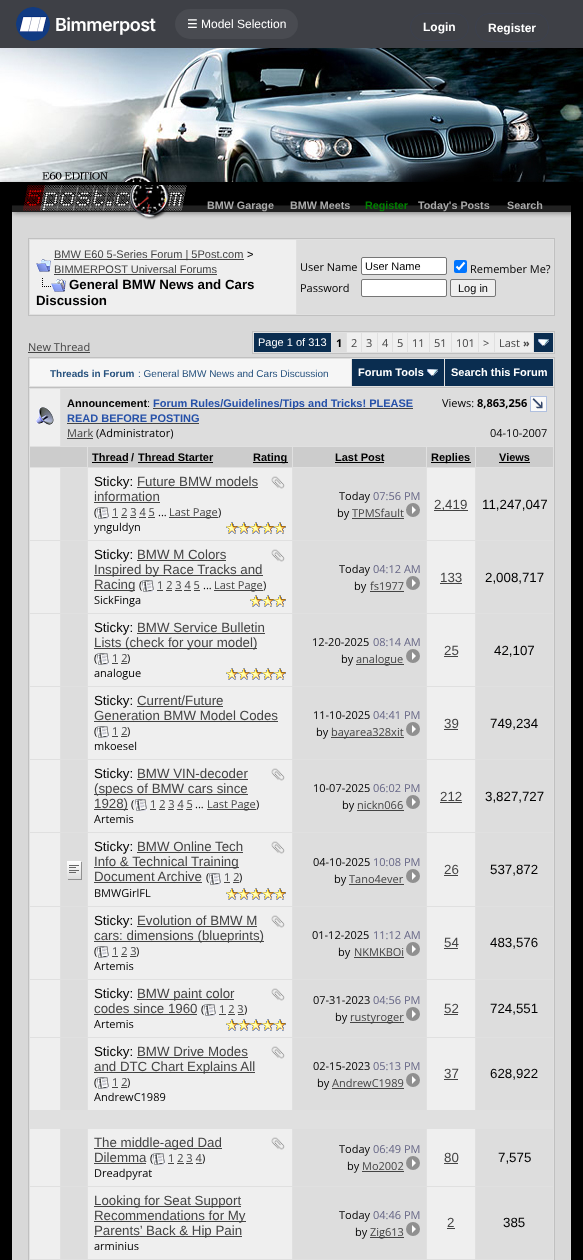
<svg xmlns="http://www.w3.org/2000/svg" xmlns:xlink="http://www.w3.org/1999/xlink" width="583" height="1260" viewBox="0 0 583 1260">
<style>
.cls-1{font:600 18px Inter;letter-spacing:-0.5px;fill:#ffffff}
.cls-2{font:12px DejaVu Sans;fill:#ffffff}
.cls-3{font:12px Liberation Sans;fill:#ffffff}
.cls-4{font:bold 12px Liberation Sans;fill:#ffffff}
.cls-5{font:bold 10.75px Liberation Sans;fill:#aaaaaa}
.cls-6{font:bold 10.75px Liberation Sans;fill:#008000}
.cls-7{font:11px Liberation Sans;fill:#444444}
.cls-8{font:11px Liberation Sans;fill:#000001}
.cls-9{font:bold 13.3px Liberation Sans;fill:#000001}
.cls-10{font:11px Open Sans;fill:#000001}
.cls-11{font:11px Open Sans;fill:#444444}
.cls-12{font:11px Liberation Sans;fill:#ffffff}
.cls-13{font:bold 11px Open Sans;fill:#000001}
.cls-14{font:bold 11px Open Sans;fill:#444444}
.cls-15{font:bold 10px Liberation Sans;fill:#26517d}
.cls-16{font:10px Liberation Sans;fill:#26517d}
.cls-17{font:bold 11px Liberation Sans;fill:#ffffff}
.cls-18{font:bold 11px Liberation Sans;fill:#000001}
.cls-19{font:bold 11px Liberation Sans;fill:#2651a9}
.cls-20{font:13.3px Liberation Sans;fill:#000001}
.cls-21{font:13.3px Liberation Sans;fill:#444444}
.cls-22{font:11px Open Sans;fill:#666686}
</style>
<defs>
<linearGradient id="g1" gradientUnits="userSpaceOnUse" x1="74" y1="861" x2="74" y2="879"><stop offset="0" stop-color="#ffffff"/><stop offset="1" stop-color="#dddddd"/></linearGradient>
</defs>
<rect width="100%" height="100%" fill="#000000"/>
<rect fill="#3e4046" x="0" y="0" width="583" height="48"/>
<image xlink:href="image0.png" x="16" y="7" width="34" height="34"/>
<rect fill="#494b51" x="175" y="9" width="123" height="30" rx="15"/>
<rect fill="none" stroke="#3c414f" x="410.5" y="13.5" width="58" height="27" rx="13.5"/>
<rect fill="none" stroke="#3c414f" x="475.5" y="13.5" width="73" height="28" rx="13.5"/>
<image xlink:href="image1.png" x="0" y="48" width="583" height="134"/>
<image xlink:href="image2.png" x="12" y="205" width="559" height="18"/>
<image xlink:href="image3.png" x="12" y="185" width="175" height="35"/>
<rect fill="#d8d8d8" x="12" y="223" width="559" height="1037"/>
<rect fill="#e0e0e0" stroke="#c0c0c0" x="28.5" y="238.5" width="526" height="77"/>
<rect fill="#efefef" x="30" y="240" width="266" height="74"/>
<image xlink:href="image4.png" x="36" y="259" width="15" height="13"/>
<rect fill="#444444" x="54" y="259" width="190" height="1"/>
<rect fill="#444444" x="54" y="274" width="163" height="1"/>
<image xlink:href="image5.png" x="42" y="278" width="24" height="14"/>
<rect fill="#dddddd" x="297" y="240" width="256" height="74"/>
<rect fill="#ffffff" stroke="#767676" x="361.5" y="257.5" width="85" height="17" rx="1.5"/>
<rect fill="#0075ff" x="454" y="260" width="13" height="13" rx="2"/>
<path fill="none" stroke="#ffffff" stroke-width="2.1" d="M456.5 266.5L459 269L464.5 262.5"/>
<rect fill="#ffffff" stroke="#767676" x="361.5" y="279.5" width="85" height="17" rx="1.5"/>
<rect fill="#efefef" stroke="#767676" x="450.5" y="279.5" width="45" height="17" rx="1.5"/>
<rect fill="#444444" x="28" y="352" width="62" height="1"/>
<rect fill="#e0e0e0" stroke="#c0c0c0" x="252.5" y="331.5" width="302" height="22"/>
<rect fill="#0a2d50" x="254" y="333" width="77" height="19"/>
<rect fill="#dddddd" x="332" y="333" width="14" height="19"/>
<rect fill="#efefef" x="347" y="333" width="14" height="19"/>
<rect fill="#efefef" x="362" y="333" width="15" height="19"/>
<rect fill="#efefef" x="378" y="333" width="14" height="19"/>
<rect fill="#efefef" x="393" y="333" width="14" height="19"/>
<rect fill="#efefef" x="408" y="333" width="21" height="19"/>
<rect fill="#efefef" x="430" y="333" width="21" height="19"/>
<rect fill="#efefef" x="452" y="333" width="26" height="19"/>
<rect fill="#efefef" x="479" y="333" width="15" height="19"/>
<rect fill="#efefef" x="495" y="333" width="38" height="19"/>
<rect fill="#0a2d50" x="534" y="333" width="19" height="19"/>
<image xlink:href="image6.png" x="538" y="339" width="11" height="7"/>
<rect fill="#e0e0e0" x="29" y="358" width="525" height="29"/>
<rect fill="#c0c0c0" x="28" y="357" width="527" height="1"/>
<rect fill="#c0c0c0" x="554" y="357" width="1" height="30"/>
<rect fill="#c0c0c0" x="28" y="357" width="1" height="30"/>
<rect fill="#f6f6f6" x="30" y="359" width="321" height="27"/>
<rect fill="#0a2d50" x="352" y="359" width="92" height="27"/>
<image xlink:href="image6.png" x="427" y="369" width="11" height="7"/>
<rect fill="#0a2d50" x="445" y="359" width="108" height="27"/>
<rect fill="#e0e0e0" stroke="#c0c0c0" x="28.5" y="387.5" width="526" height="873"/>
<rect fill="#efefef" x="30" y="389" width="30" height="57"/>
<image xlink:href="image7.png" x="36" y="407" width="18" height="18"/>
<rect fill="#dddddd" x="61" y="389" width="492" height="57"/>
<rect fill="#444444" x="153" y="408" width="260" height="1"/>
<image xlink:href="image8.png" x="530" y="396" width="17" height="16"/>
<rect fill="#444444" x="67" y="423" width="132" height="1"/>
<rect fill="#444444" x="67" y="438" width="26" height="1"/>
<rect fill="#cccccc" x="30" y="447" width="57" height="20"/>
<rect fill="#cccccc" x="88" y="447" width="204" height="20"/>
<rect fill="#000000" x="92" y="462" width="36" height="1"/>
<rect fill="#000000" x="138" y="462" width="75" height="1"/>
<rect fill="#000000" x="253" y="462" width="35" height="1"/>
<rect fill="#cccccc" x="293" y="447" width="133" height="20"/>
<rect fill="#000000" x="335" y="462" width="49" height="1"/>
<rect fill="#cccccc" x="427" y="447" width="48" height="20"/>
<rect fill="#000000" x="431" y="462" width="40" height="1"/>
<rect fill="#cccccc" x="476" y="447" width="77" height="20"/>
<rect fill="#000000" x="499" y="462" width="31" height="1"/>
<rect fill="#efefef" x="30" y="468" width="30" height="72"/>
<rect fill="#dddddd" x="61" y="468" width="26" height="72"/>
<rect fill="#efefef" x="88" y="468" width="204" height="72"/>
<rect fill="#444444" x="137" y="487" width="121" height="1"/>
<image xlink:href="image9.png" x="271" y="476" width="14" height="13"/>
<rect fill="#444444" x="94" y="502" width="66" height="1"/>
<image xlink:href="image10.png" x="97" y="507" width="12" height="12"/>
<rect fill="#444444" x="112" y="517" width="6" height="1"/>
<rect fill="#444444" x="121" y="517" width="6" height="1"/>
<rect fill="#444444" x="130" y="517" width="6" height="1"/>
<rect fill="#444444" x="139" y="517" width="7" height="1"/>
<rect fill="#444444" x="148" y="517" width="7" height="1"/>
<rect fill="#444444" x="169" y="517" width="49" height="1"/>
<image xlink:href="image11.png" x="226" y="522" width="60" height="12"/>
<rect fill="#dddddd" x="293" y="468" width="133" height="72"/>
<rect fill="#444444" x="352" y="518" width="52" height="1"/>
<circle fill="#909090" cx="413" cy="510" r="7"/>
<path fill="#ffffff" d="M412 514V506L416 510Z"/>
<rect fill="#efefef" x="427" y="468" width="48" height="72"/>
<rect fill="#444444" x="434" y="510" width="34" height="1"/>
<rect fill="#dddddd" x="476" y="468" width="77" height="72"/>
<rect fill="#efefef" x="30" y="541" width="30" height="72"/>
<rect fill="#dddddd" x="61" y="541" width="26" height="72"/>
<rect fill="#efefef" x="88" y="541" width="204" height="72"/>
<rect fill="#444444" x="137" y="560" width="89" height="1"/>
<image xlink:href="image9.png" x="271" y="549" width="14" height="13"/>
<rect fill="#444444" x="94" y="575" width="169" height="1"/>
<rect fill="#444444" x="94" y="590" width="41" height="1"/>
<image xlink:href="image10.png" x="142" y="580" width="12" height="12"/>
<rect fill="#444444" x="157" y="590" width="6" height="1"/>
<rect fill="#444444" x="166" y="590" width="6" height="1"/>
<rect fill="#444444" x="175" y="590" width="7" height="1"/>
<rect fill="#444444" x="184" y="590" width="7" height="1"/>
<rect fill="#444444" x="194" y="590" width="6" height="1"/>
<rect fill="#444444" x="214" y="590" width="49" height="1"/>
<image xlink:href="image12.png" x="250" y="595" width="36" height="12"/>
<rect fill="#dddddd" x="293" y="541" width="133" height="72"/>
<rect fill="#444444" x="370" y="591" width="34" height="1"/>
<circle fill="#909090" cx="413" cy="583" r="7"/>
<path fill="#ffffff" d="M412 587V579L416 583Z"/>
<rect fill="#efefef" x="427" y="541" width="48" height="72"/>
<rect fill="#444444" x="440" y="583" width="22" height="1"/>
<rect fill="#dddddd" x="476" y="541" width="77" height="72"/>
<rect fill="#efefef" x="30" y="614" width="30" height="72"/>
<rect fill="#dddddd" x="61" y="614" width="26" height="72"/>
<rect fill="#efefef" x="88" y="614" width="204" height="72"/>
<rect fill="#444444" x="137" y="633" width="128" height="1"/>
<rect fill="#444444" x="94" y="648" width="163" height="1"/>
<image xlink:href="image10.png" x="97" y="653" width="12" height="12"/>
<rect fill="#444444" x="112" y="663" width="6" height="1"/>
<rect fill="#444444" x="121" y="663" width="6" height="1"/>
<image xlink:href="image11.png" x="226" y="668" width="60" height="12"/>
<rect fill="#dddddd" x="293" y="614" width="133" height="72"/>
<rect fill="#444444" x="356" y="664" width="48" height="1"/>
<circle fill="#909090" cx="413" cy="656" r="7"/>
<path fill="#ffffff" d="M412 660V652L416 656Z"/>
<rect fill="#efefef" x="427" y="614" width="48" height="72"/>
<rect fill="#444444" x="444" y="656" width="14" height="1"/>
<rect fill="#dddddd" x="476" y="614" width="77" height="72"/>
<rect fill="#efefef" x="30" y="687" width="30" height="72"/>
<rect fill="#dddddd" x="61" y="687" width="26" height="72"/>
<rect fill="#efefef" x="88" y="687" width="204" height="72"/>
<rect fill="#444444" x="137" y="706" width="86" height="1"/>
<rect fill="#444444" x="94" y="721" width="184" height="1"/>
<image xlink:href="image10.png" x="97" y="726" width="12" height="12"/>
<rect fill="#444444" x="112" y="736" width="6" height="1"/>
<rect fill="#444444" x="121" y="736" width="6" height="1"/>
<rect fill="#dddddd" x="293" y="687" width="133" height="72"/>
<rect fill="#444444" x="331" y="737" width="73" height="1"/>
<circle fill="#909090" cx="413" cy="729" r="7"/>
<path fill="#ffffff" d="M412 733V725L416 729Z"/>
<rect fill="#efefef" x="427" y="687" width="48" height="72"/>
<rect fill="#444444" x="444" y="729" width="14" height="1"/>
<rect fill="#dddddd" x="476" y="687" width="77" height="72"/>
<rect fill="#efefef" x="30" y="760" width="30" height="72"/>
<rect fill="#dddddd" x="61" y="760" width="26" height="72"/>
<rect fill="#efefef" x="88" y="760" width="204" height="72"/>
<rect fill="#444444" x="137" y="779" width="111" height="1"/>
<image xlink:href="image9.png" x="271" y="768" width="14" height="13"/>
<rect fill="#444444" x="94" y="794" width="154" height="1"/>
<rect fill="#444444" x="94" y="809" width="34" height="1"/>
<image xlink:href="image10.png" x="135" y="799" width="12" height="12"/>
<rect fill="#444444" x="150" y="809" width="6" height="1"/>
<rect fill="#444444" x="159" y="809" width="6" height="1"/>
<rect fill="#444444" x="168" y="809" width="6" height="1"/>
<rect fill="#444444" x="177" y="809" width="6" height="1"/>
<rect fill="#444444" x="186" y="809" width="6" height="1"/>
<rect fill="#444444" x="207" y="809" width="49" height="1"/>
<rect fill="#dddddd" x="293" y="760" width="133" height="72"/>
<rect fill="#444444" x="357" y="810" width="47" height="1"/>
<circle fill="#909090" cx="413" cy="802" r="7"/>
<path fill="#ffffff" d="M412 806V798L416 802Z"/>
<rect fill="#efefef" x="427" y="760" width="48" height="72"/>
<rect fill="#444444" x="440" y="802" width="22" height="1"/>
<rect fill="#dddddd" x="476" y="760" width="77" height="72"/>
<rect fill="#efefef" x="30" y="833" width="30" height="73"/>
<rect fill="#dddddd" x="61" y="833" width="26" height="73"/>
<path fill="#909090" d="M68 879V880H82V862H81V879Z"/>
<rect fill="url(#g1)" x="67" y="861" width="14" height="17"/>
<rect fill="#666666" x="69" y="865" width="10" height="1"/>
<rect fill="#666666" x="69" y="870" width="10" height="1"/>
<rect fill="#666666" x="69" y="867" width="7" height="1"/>
<rect fill="#666666" x="69" y="872" width="7" height="1"/>
<rect fill="#efefef" x="88" y="833" width="204" height="73"/>
<rect fill="#444444" x="137" y="852" width="106" height="1"/>
<image xlink:href="image9.png" x="271" y="841" width="14" height="13"/>
<rect fill="#444444" x="94" y="867" width="145" height="1"/>
<rect fill="#444444" x="94" y="882" width="108" height="1"/>
<image xlink:href="image10.png" x="209" y="873" width="12" height="12"/>
<rect fill="#444444" x="224" y="882" width="6" height="1"/>
<rect fill="#444444" x="233" y="882" width="6" height="1"/>
<image xlink:href="image11.png" x="226" y="888" width="60" height="12"/>
<rect fill="#dddddd" x="293" y="833" width="133" height="73"/>
<rect fill="#444444" x="349" y="884" width="55" height="1"/>
<circle fill="#909090" cx="413" cy="876" r="7"/>
<path fill="#ffffff" d="M412 880V872L416 876Z"/>
<rect fill="#efefef" x="427" y="833" width="48" height="73"/>
<rect fill="#444444" x="444" y="875" width="14" height="1"/>
<rect fill="#dddddd" x="476" y="833" width="77" height="73"/>
<rect fill="#efefef" x="30" y="907" width="30" height="72"/>
<rect fill="#dddddd" x="61" y="907" width="26" height="72"/>
<rect fill="#efefef" x="88" y="907" width="204" height="72"/>
<rect fill="#444444" x="137" y="926" width="120" height="1"/>
<image xlink:href="image9.png" x="271" y="915" width="14" height="13"/>
<rect fill="#444444" x="94" y="941" width="170" height="1"/>
<image xlink:href="image10.png" x="97" y="946" width="12" height="12"/>
<rect fill="#444444" x="112" y="956" width="6" height="1"/>
<rect fill="#444444" x="121" y="956" width="6" height="1"/>
<rect fill="#444444" x="130" y="956" width="6" height="1"/>
<rect fill="#dddddd" x="293" y="907" width="133" height="72"/>
<rect fill="#444444" x="354" y="957" width="50" height="1"/>
<circle fill="#909090" cx="413" cy="949" r="7"/>
<path fill="#ffffff" d="M412 953V945L416 949Z"/>
<rect fill="#efefef" x="427" y="907" width="48" height="72"/>
<rect fill="#444444" x="444" y="948" width="14" height="1"/>
<rect fill="#dddddd" x="476" y="907" width="77" height="72"/>
<rect fill="#efefef" x="30" y="980" width="30" height="57"/>
<rect fill="#dddddd" x="61" y="980" width="26" height="57"/>
<rect fill="#efefef" x="88" y="980" width="204" height="57"/>
<rect fill="#444444" x="137" y="999" width="97" height="1"/>
<image xlink:href="image9.png" x="271" y="988" width="14" height="13"/>
<rect fill="#444444" x="94" y="1014" width="103" height="1"/>
<image xlink:href="image10.png" x="204" y="1004" width="12" height="12"/>
<rect fill="#444444" x="219" y="1014" width="7" height="1"/>
<rect fill="#444444" x="228" y="1014" width="7" height="1"/>
<rect fill="#444444" x="238" y="1014" width="6" height="1"/>
<image xlink:href="image11.png" x="226" y="1019" width="60" height="12"/>
<rect fill="#dddddd" x="293" y="980" width="133" height="57"/>
<rect fill="#444444" x="350" y="1022" width="54" height="1"/>
<circle fill="#909090" cx="413" cy="1014" r="7"/>
<path fill="#ffffff" d="M412 1018V1010L416 1014Z"/>
<rect fill="#efefef" x="427" y="980" width="48" height="57"/>
<rect fill="#444444" x="444" y="1014" width="14" height="1"/>
<rect fill="#dddddd" x="476" y="980" width="77" height="57"/>
<rect fill="#efefef" x="30" y="1038" width="30" height="72"/>
<rect fill="#dddddd" x="61" y="1038" width="26" height="72"/>
<rect fill="#efefef" x="88" y="1038" width="204" height="72"/>
<rect fill="#444444" x="137" y="1057" width="111" height="1"/>
<image xlink:href="image9.png" x="271" y="1046" width="14" height="13"/>
<rect fill="#444444" x="94" y="1072" width="161" height="1"/>
<image xlink:href="image10.png" x="97" y="1077" width="12" height="12"/>
<rect fill="#444444" x="112" y="1087" width="6" height="1"/>
<rect fill="#444444" x="121" y="1087" width="6" height="1"/>
<rect fill="#dddddd" x="293" y="1038" width="133" height="72"/>
<rect fill="#444444" x="332" y="1088" width="72" height="1"/>
<circle fill="#909090" cx="413" cy="1080" r="7"/>
<path fill="#ffffff" d="M412 1084V1076L416 1080Z"/>
<rect fill="#efefef" x="427" y="1038" width="48" height="72"/>
<rect fill="#444444" x="444" y="1079" width="14" height="1"/>
<rect fill="#dddddd" x="476" y="1038" width="77" height="72"/>
<rect fill="#efefef" x="30" y="1129" width="30" height="57"/>
<rect fill="#dddddd" x="61" y="1129" width="26" height="57"/>
<rect fill="#efefef" x="88" y="1129" width="204" height="57"/>
<rect fill="#444444" x="94" y="1148" width="128" height="1"/>
<image xlink:href="image9.png" x="271" y="1137" width="14" height="13"/>
<rect fill="#444444" x="94" y="1163" width="52" height="1"/>
<image xlink:href="image10.png" x="153" y="1153" width="12" height="12"/>
<rect fill="#444444" x="168" y="1163" width="6" height="1"/>
<rect fill="#444444" x="177" y="1163" width="7" height="1"/>
<rect fill="#444444" x="186" y="1163" width="7" height="1"/>
<rect fill="#444444" x="196" y="1163" width="6" height="1"/>
<rect fill="#dddddd" x="293" y="1129" width="133" height="57"/>
<rect fill="#444444" x="362" y="1171" width="42" height="1"/>
<circle fill="#909090" cx="413" cy="1163" r="7"/>
<path fill="#ffffff" d="M412 1167V1159L416 1163Z"/>
<rect fill="#efefef" x="427" y="1129" width="48" height="57"/>
<rect fill="#444444" x="444" y="1163" width="14" height="1"/>
<rect fill="#dddddd" x="476" y="1129" width="77" height="57"/>
<rect fill="#efefef" x="30" y="1187" width="30" height="72"/>
<rect fill="#dddddd" x="61" y="1187" width="26" height="72"/>
<rect fill="#efefef" x="88" y="1187" width="204" height="72"/>
<rect fill="#444444" x="94" y="1206" width="147" height="1"/>
<rect fill="#444444" x="94" y="1221" width="152" height="1"/>
<rect fill="#444444" x="94" y="1236" width="148" height="1"/>
<rect fill="#dddddd" x="293" y="1187" width="133" height="72"/>
<rect fill="#444444" x="370" y="1237" width="34" height="1"/>
<circle fill="#909090" cx="413" cy="1229" r="7"/>
<path fill="#ffffff" d="M412 1233V1225L416 1229Z"/>
<rect fill="#efefef" x="427" y="1187" width="48" height="72"/>
<rect fill="#444444" x="447" y="1228" width="8" height="1"/>
<rect fill="#dddddd" x="476" y="1187" width="77" height="72"/>
<text class="cls-1" x="55" y="31">Bimmerpost</text>
<text class="cls-2" x="187" y="28">☰</text>
<text class="cls-3" x="201" y="28">Model Selection</text>
<text class="cls-4" x="423" y="31">Login</text>
<text class="cls-4" x="488" y="32">Register</text>
<text class="cls-5" x="207" y="209">BMW Garage</text>
<text class="cls-5" x="290" y="209">BMW Meets</text>
<text class="cls-6" x="365" y="209">Register</text>
<text class="cls-5" x="418" y="209">Today's Posts</text>
<text class="cls-5" x="507" y="209">Search</text>
<text class="cls-7" x="54" y="258">BMW E60 5-Series Forum | 5Post.com</text>
<text class="cls-8" x="247" y="258">&gt;</text>
<text class="cls-7" x="54" y="273">BIMMERPOST Universal Forums</text>
<text class="cls-9" x="69" y="289">General BMW News and Cars</text>
<text class="cls-9" x="36" y="305">Discussion</text>
<text class="cls-10" x="300" y="271">User Name</text>
<text class="cls-8" x="365" y="270">User Name</text>
<text class="cls-10" x="470" y="273">Remember Me?</text>
<text class="cls-10" x="300" y="292">Password</text>
<text class="cls-8" x="458" y="292">Log in</text>
<text class="cls-11" x="28" y="351">New Thread</text>
<text class="cls-12" x="258" y="346">Page 1 of 313</text>
<text class="cls-13" x="336" y="347">1</text>
<text class="cls-11" x="351" y="347">2</text>
<text class="cls-11" x="366" y="347">3</text>
<text class="cls-11" x="382" y="347">4</text>
<text class="cls-11" x="397" y="347">5</text>
<text class="cls-11" x="412" y="347">11</text>
<text class="cls-11" x="434" y="347">51</text>
<text class="cls-11" x="456" y="347">101</text>
<text class="cls-11" x="483" y="347">&gt;</text>
<text class="cls-11" x="499" y="347">Last</text>
<text class="cls-14" x="523" y="347">»</text>
<text class="cls-15" x="50" y="377">Threads in Forum</text>
<text class="cls-16" x="138" y="377">: General BMW News and Cars Discussion</text>
<text class="cls-17" x="358" y="376">Forum Tools</text>
<text class="cls-17" x="451" y="376">Search this Forum</text>
<text class="cls-18" x="67" y="407">Announcement</text>
<text class="cls-8" x="147" y="407">:</text>
<text class="cls-19" x="153" y="407">Forum Rules/Guidelines/Tips and Tricks! PLEASE</text>
<text class="cls-10" x="442" y="407">Views:</text>
<text class="cls-13" x="477" y="407">8,863,256</text>
<text class="cls-19" x="67" y="422">READ BEFORE POSTING</text>
<text class="cls-11" x="67" y="437">Mark</text>
<text class="cls-10" x="96" y="437">(Administrator)</text>
<text class="cls-10" x="490" y="437">04-10-2007</text>
<text class="cls-18" x="92" y="461">Thread</text>
<text class="cls-18" x="131" y="461">/</text>
<text class="cls-18" x="138" y="461">Thread Starter</text>
<text class="cls-18" x="253" y="461">Rating</text>
<text class="cls-18" x="335" y="461">Last Post</text>
<text class="cls-18" x="431" y="461">Replies</text>
<text class="cls-18" x="499" y="461">Views</text>
<text class="cls-20" x="94" y="486">Sticky:</text>
<text class="cls-21" x="137" y="486">Future BMW models</text>
<text class="cls-21" x="94" y="501">information</text>
<text class="cls-10" x="94" y="516">(</text>
<text class="cls-11" x="112" y="516">1 2 3 4 5</text>
<text class="cls-10" x="158" y="516">...</text>
<text class="cls-11" x="169" y="516">Last Page</text>
<text class="cls-10" x="218" y="516">)</text>
<text class="cls-10" x="94" y="531">ynguldyn</text>
<text class="cls-10" x="339" y="500">Today</text>
<text class="cls-22" x="373" y="500">07:56 PM</text>
<text class="cls-10" x="337" y="517">by</text>
<text class="cls-11" x="352" y="517">TPMSfault</text>
<text class="cls-21" x="434" y="509">2,419</text>
<text class="cls-20" x="482" y="509">11,247,047</text>
<text class="cls-20" x="94" y="559">Sticky:</text>
<text class="cls-21" x="137" y="559">BMW M Colors</text>
<text class="cls-21"><tspan x="94" y="574">Inspired by Race Tracks and</tspan><tspan x="94" y="589">Racing</tspan></text>
<text class="cls-10" x="139" y="589">(</text>
<text class="cls-11" x="157" y="589">1 2 3 4 5</text>
<text class="cls-10" x="203" y="589">...</text>
<text class="cls-11" x="214" y="589">Last Page</text>
<text class="cls-10" x="263" y="589">)</text>
<text class="cls-10" x="94" y="604">SickFinga</text>
<text class="cls-10" x="339" y="573">Today</text>
<text class="cls-22" x="373" y="573">04:12 AM</text>
<text class="cls-10" x="354" y="590">by</text>
<text class="cls-11" x="370" y="590">fs1977</text>
<text class="cls-21" x="440" y="582">133</text>
<text class="cls-20" x="485" y="582">2,008,717</text>
<text class="cls-20" x="94" y="632">Sticky:</text>
<text class="cls-21" x="137" y="632">BMW Service Bulletin</text>
<text class="cls-21" x="94" y="647">Lists (check for your model)</text>
<text class="cls-10" x="94" y="662">(</text>
<text class="cls-11" x="112" y="662">1 2</text>
<text class="cls-10" x="127" y="662">)</text>
<text class="cls-10" x="94" y="677">analogue</text>
<text class="cls-10" x="312" y="646">12-20-2025</text>
<text class="cls-22" x="373" y="646">08:14 AM</text>
<text class="cls-10" x="341" y="663">by</text>
<text class="cls-11" x="356" y="663">analogue</text>
<text class="cls-21" x="444" y="655">25</text>
<text class="cls-20" x="494" y="655">42,107</text>
<text class="cls-20" x="94" y="705">Sticky:</text>
<text class="cls-21" x="137" y="705">Current/Future</text>
<text class="cls-21" x="94" y="720">Generation BMW Model Codes</text>
<text class="cls-10" x="94" y="735">(</text>
<text class="cls-11" x="112" y="735">1 2</text>
<text class="cls-10" x="127" y="735">)</text>
<text class="cls-10" x="94" y="750">mkoesel</text>
<text class="cls-10" x="313" y="719">11-10-2025</text>
<text class="cls-22" x="373" y="719">04:41 PM</text>
<text class="cls-10" x="316" y="736">by</text>
<text class="cls-11" x="331" y="736">bayarea328xit</text>
<text class="cls-21" x="444" y="728">39</text>
<text class="cls-20" x="490" y="728">749,234</text>
<text class="cls-20" x="94" y="778">Sticky:</text>
<text class="cls-21" x="137" y="778">BMW VIN-decoder</text>
<text class="cls-21"><tspan x="94" y="793">(specs of BMW cars since</tspan><tspan x="94" y="808">1928)</tspan></text>
<text class="cls-10" x="131" y="808">(</text>
<text class="cls-11" x="150" y="808">1 2 3 4 5</text>
<text class="cls-10" x="195" y="808">...</text>
<text class="cls-11" x="207" y="808">Last Page</text>
<text class="cls-10" x="256" y="808">)</text>
<text class="cls-10" x="94" y="823">Artemis</text>
<text class="cls-10" x="313" y="792">10-07-2025</text>
<text class="cls-22" x="373" y="792">06:02 PM</text>
<text class="cls-10" x="342" y="809">by</text>
<text class="cls-11" x="357" y="809">nickn066</text>
<text class="cls-21" x="440" y="801">212</text>
<text class="cls-20" x="485" y="801">3,827,727</text>
<text class="cls-20" x="94" y="851">Sticky:</text>
<text class="cls-21" x="137" y="851">BMW Online Tech</text>
<text class="cls-21"><tspan x="94" y="866">Info &amp; Technical Training</tspan><tspan x="94" y="881">Document Archive</tspan></text>
<text class="cls-10" x="206" y="881">(</text>
<text class="cls-11" x="224" y="881">1 2</text>
<text class="cls-10" x="239" y="881">)</text>
<text class="cls-10" x="94" y="897">BMWGirlFL</text>
<text class="cls-10" x="313" y="866">04-10-2025</text>
<text class="cls-22" x="373" y="866">10:08 PM</text>
<text class="cls-10" x="334" y="883">by</text>
<text class="cls-11" x="349" y="883">Tano4ever</text>
<text class="cls-21" x="444" y="874">26</text>
<text class="cls-20" x="490" y="874">537,872</text>
<text class="cls-20" x="94" y="925">Sticky:</text>
<text class="cls-21" x="137" y="925">Evolution of BMW M</text>
<text class="cls-21" x="94" y="940">cars: dimensions (blueprints)</text>
<text class="cls-10" x="94" y="955">(</text>
<text class="cls-11" x="112" y="955">1 2 3</text>
<text class="cls-10" x="136" y="955">)</text>
<text class="cls-10" x="94" y="970">Artemis</text>
<text class="cls-10" x="312" y="939">01-12-2025</text>
<text class="cls-22" x="373" y="939">11:12 AM</text>
<text class="cls-10" x="338" y="956">by</text>
<text class="cls-11" x="354" y="956">NKMKBOi</text>
<text class="cls-21" x="444" y="947">54</text>
<text class="cls-20" x="490" y="947">483,576</text>
<text class="cls-20" x="94" y="998">Sticky:</text>
<text class="cls-21" x="137" y="998">BMW paint color</text>
<text class="cls-21" x="94" y="1013">codes since 1960</text>
<text class="cls-10" x="201" y="1013">(</text>
<text class="cls-11" x="219" y="1013">1 2 3</text>
<text class="cls-10" x="244" y="1013">)</text>
<text class="cls-10" x="94" y="1028">Artemis</text>
<text class="cls-10" x="313" y="1004">07-31-2023</text>
<text class="cls-22" x="373" y="1004">04:56 PM</text>
<text class="cls-10" x="335" y="1021">by</text>
<text class="cls-11" x="350" y="1021">rustyroger</text>
<text class="cls-21" x="444" y="1013">52</text>
<text class="cls-20" x="490" y="1013">724,551</text>
<text class="cls-20" x="94" y="1056">Sticky:</text>
<text class="cls-21" x="137" y="1056">BMW Drive Modes</text>
<text class="cls-21" x="94" y="1071">and DTC Chart Explains All</text>
<text class="cls-10" x="94" y="1086">(</text>
<text class="cls-11" x="112" y="1086">1 2</text>
<text class="cls-10" x="127" y="1086">)</text>
<text class="cls-10" x="94" y="1101">AndrewC1989</text>
<text class="cls-10" x="313" y="1070">02-15-2023</text>
<text class="cls-22" x="373" y="1070">05:13 PM</text>
<text class="cls-10" x="317" y="1087">by</text>
<text class="cls-11" x="332" y="1087">AndrewC1989</text>
<text class="cls-21" x="444" y="1078">37</text>
<text class="cls-20" x="490" y="1078">628,922</text>
<text class="cls-21"><tspan x="94" y="1147">The middle-aged Dad</tspan><tspan x="94" y="1162">Dilemma</tspan></text>
<text class="cls-10" x="150" y="1162">(</text>
<text class="cls-11" x="168" y="1162">1 2 3 4</text>
<text class="cls-10" x="202" y="1162">)</text>
<text class="cls-10" x="94" y="1177">Dreadpyrat</text>
<text class="cls-10" x="339" y="1153">Today</text>
<text class="cls-22" x="373" y="1153">06:49 PM</text>
<text class="cls-10" x="347" y="1170">by</text>
<text class="cls-11" x="362" y="1170">Mo2002</text>
<text class="cls-21" x="444" y="1162">80</text>
<text class="cls-20" x="498" y="1162">7,575</text>
<text class="cls-21"><tspan x="94" y="1205">Looking for Seat Support</tspan><tspan x="94" y="1220">Recommendations for My</tspan><tspan x="94" y="1235">Parents’ Back &amp; Hip Pain</tspan></text>
<text class="cls-10" x="94" y="1250">arminius</text>
<text class="cls-10" x="339" y="1219">Today</text>
<text class="cls-22" x="373" y="1219">04:46 PM</text>
<text class="cls-10" x="355" y="1236">by</text>
<text class="cls-11" x="370" y="1236">Zig613</text>
<text class="cls-21" x="447" y="1227">2</text>
<text class="cls-20" x="503" y="1227">385</text>
</svg>
